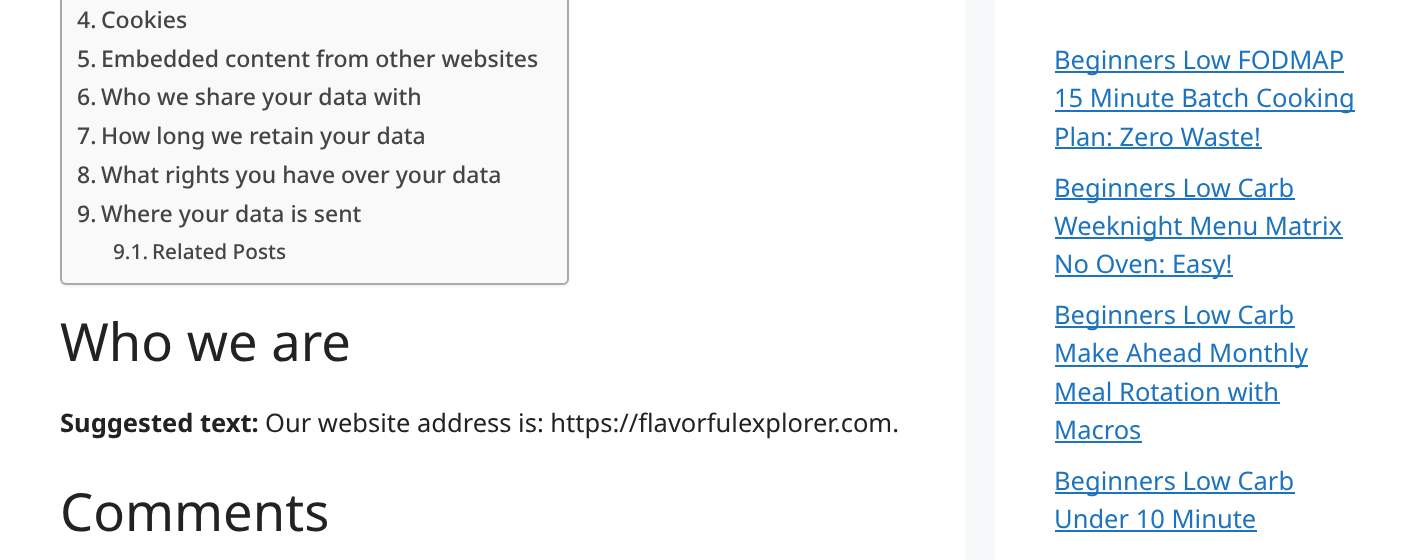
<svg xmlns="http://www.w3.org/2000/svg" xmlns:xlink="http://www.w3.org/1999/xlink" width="1420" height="560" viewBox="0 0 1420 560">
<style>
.cls-1{font:500 23px Noto Sans;fill:#444444}
.cls-2{font:500 20.75px Noto Sans;fill:#444444}
.cls-3{font:52.5px Noto Sans;fill:#222222}
.cls-4{font:bold 25.5px Noto Sans;fill:#222222}
.cls-5{font:25.5px Noto Sans;fill:#222222}
.cls-6{font:25.5px Noto Sans;fill:#1e73be}
</style>
<rect width="100%" height="100%" fill="#f7f8f9"/>
<rect fill="#ffffff" x="0" y="0" width="965" height="560"/>
<rect fill="#000000" fill-opacity="0.05" filter="blur(1px)" x="60" y="-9" width="509" height="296" rx="6"/>
<rect fill="#f9f9f9" stroke="#aaaaaa" stroke-width="2" x="61" y="-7" width="507" height="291" rx="5"/>
<rect fill="#ffffff" x="995" y="0" width="425" height="560"/>
<rect fill="#1e73be" x="1055" y="71" width="289" height="2"/>
<rect fill="#1e73be" x="1055" y="110" width="300" height="2"/>
<rect fill="#1e73be" x="1055" y="147" width="207" height="2"/>
<rect fill="#1e73be" x="1055" y="198" width="240" height="2"/>
<rect fill="#1e73be" x="1055" y="237" width="288" height="2"/>
<rect fill="#1e73be" x="1055" y="275" width="178" height="2"/>
<rect fill="#1e73be" x="1055" y="326" width="240" height="2"/>
<rect fill="#1e73be" x="1055" y="365" width="253" height="2"/>
<rect fill="#1e73be" x="1055" y="402" width="225" height="2"/>
<rect fill="#1e73be" x="1055" y="441" width="87" height="2"/>
<rect fill="#1e73be" x="1055" y="492" width="240" height="2"/>
<rect fill="#1e73be" x="1055" y="530" width="202" height="2"/>
<text class="cls-1" x="77" y="28">4.</text>
<text class="cls-1" x="101" y="28">Cookies</text>
<text class="cls-1" x="77" y="67">5.</text>
<text class="cls-1" x="101" y="67">Embedded content from other websites</text>
<text class="cls-1" x="77" y="105">6.</text>
<text class="cls-1" x="101" y="105">Who we share your data with</text>
<text class="cls-1" x="77" y="144">7.</text>
<text class="cls-1" x="101" y="144">How long we retain your data</text>
<text class="cls-1" x="77" y="183">8.</text>
<text class="cls-1" x="101" y="183">What rights you have over your data</text>
<text class="cls-1" x="77" y="222">9.</text>
<text class="cls-1" x="101" y="222">Where your data is sent</text>
<text class="cls-2" x="113" y="259">9.1.</text>
<text class="cls-2" x="152" y="259">Related Posts</text>
<text class="cls-3" x="60" y="361">Who we are</text>
<text class="cls-4" x="60" y="432">Suggested text:</text>
<text class="cls-5" x="265" y="432">Our website address is: https://flavorfulexplorer.com.</text>
<text class="cls-3" x="60" y="531">Comments</text>
<text class="cls-6"><tspan x="1054" y="69">Beginners Low FODMAP</tspan><tspan x="1054" y="107">15 Minute Batch Cooking</tspan><tspan x="1054" y="146">Plan: Zero Waste!</tspan></text>
<text class="cls-6"><tspan x="1054" y="197">Beginners Low Carb</tspan><tspan x="1054" y="235">Weeknight Menu Matrix</tspan><tspan x="1054" y="273">No Oven: Easy!</tspan></text>
<text class="cls-6"><tspan x="1054" y="324">Beginners Low Carb</tspan><tspan x="1054" y="362">Make Ahead Monthly</tspan><tspan x="1054" y="401">Meal Rotation with</tspan><tspan x="1054" y="439">Macros</tspan></text>
<text class="cls-6"><tspan x="1054" y="490">Beginners Low Carb</tspan><tspan x="1054" y="528">Under 10 Minute</tspan></text>
</svg>
